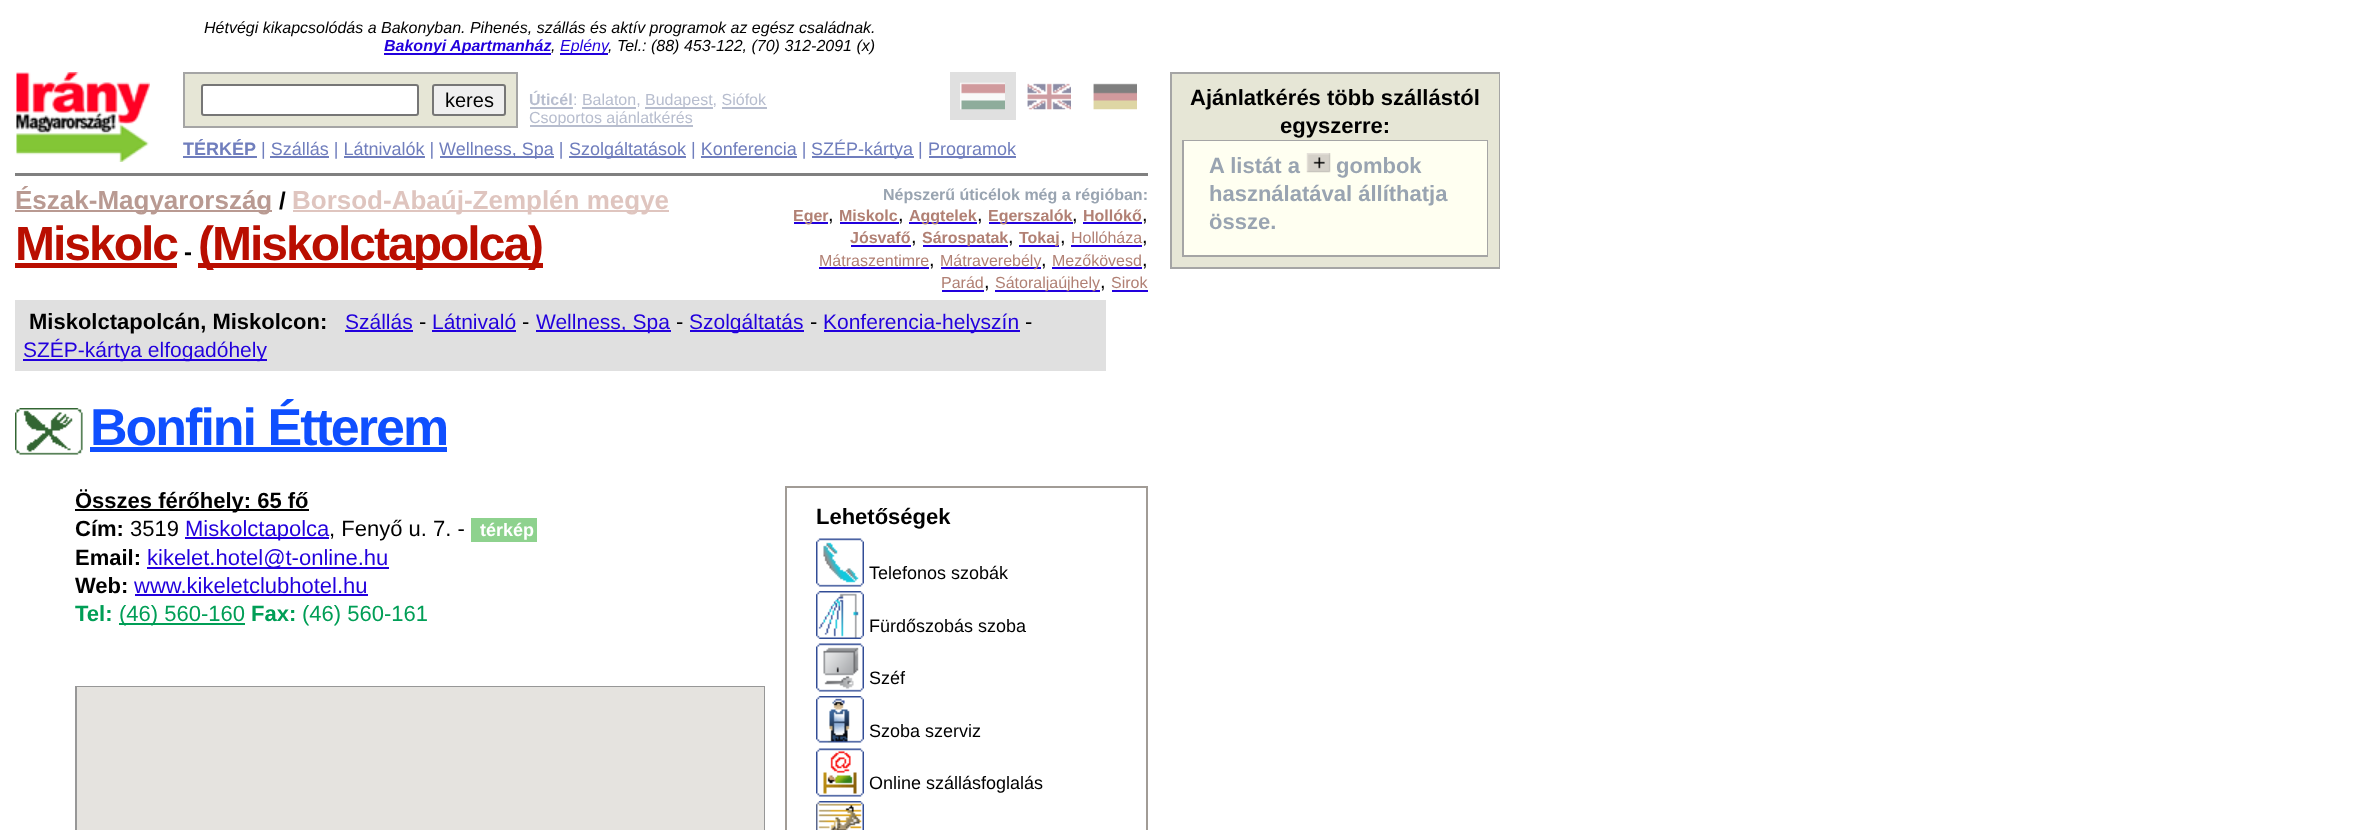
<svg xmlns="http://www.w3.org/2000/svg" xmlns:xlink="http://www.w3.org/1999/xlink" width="2365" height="830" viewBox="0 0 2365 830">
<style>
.cls-1{font:italic 16px Liberation Sans;fill:#000000}
.cls-2{font:italic bold 16px Liberation Sans;fill:#2200dd}
.cls-3{font:italic 16px Liberation Sans;fill:#2200dd}
.cls-4{font:20px Liberation Sans;fill:#000000}
.cls-5{font:bold 16px Liberation Sans;fill:#b7bdce}
.cls-6{font:16px Liberation Sans;fill:#b7bdce}
.cls-7{font:bold 18px Liberation Sans;fill:#707ebd}
.cls-8{font:18px Liberation Sans;fill:#707ebd}
.cls-9{font:bold 26px Liberation Sans;fill:#b99a92}
.cls-10{font:bold 24px Liberation Sans;fill:#000000}
.cls-11{font:bold 26px Liberation Sans;fill:#dfc5bf}
.cls-12{font:bold 16px Liberation Sans;fill:#99a4b1}
.cls-13{font:bold 16px Liberation Sans;fill:#b18074}
.cls-14{font:16px Liberation Sans;fill:#b18074}
.cls-15{font:bold 48px Liberation Sans;letter-spacing:-2px;fill:#b90e00}
.cls-16{font:bold 22px Liberation Sans;fill:#000000}
.cls-17{font:21px Liberation Sans;fill:#2200dd}
.cls-18{font:22px Liberation Sans;fill:#000000}
.cls-19{font:bold 52px Liberation Sans;letter-spacing:-2px;fill:#0f4fff}
.cls-20{font:22px Liberation Sans;fill:#2200dd}
.cls-21{font:bold 18px Liberation Sans;fill:#ffffff}
.cls-22{font:bold 22px Liberation Sans;fill:#009e56}
.cls-23{font:22px Liberation Sans;fill:#009e56}
.cls-24{font:18px Liberation Sans;fill:#000000}
.cls-25{font:bold 22px Liberation Sans;fill:#99a4b1}
</style>
<rect width="100%" height="100%" fill="#ffffff"/>
<rect fill="#2200dd" x="384" y="53" width="167" height="2"/>
<rect fill="#2200dd" x="560" y="53" width="48" height="2"/>
<image xlink:href="image0.png" x="16" y="72" width="134" height="90"/>
<rect fill="#e6e6d6" stroke="#a5a5a5" stroke-width="2" x="184" y="73" width="333" height="54"/>
<rect fill="#ffffff" stroke="#767676" stroke-width="2" x="202" y="85" width="216" height="30" rx="2"/>
<rect fill="#efefef" stroke="#767676" stroke-width="2" x="433" y="85" width="72" height="30" rx="2"/>
<rect fill="#b7bdce" x="530" y="107" width="43" height="2"/>
<rect fill="#b7bdce" x="582" y="107" width="54" height="2"/>
<rect fill="#b7bdce" x="645" y="107" width="68" height="2"/>
<rect fill="#b7bdce" x="722" y="107" width="45" height="2"/>
<rect fill="#b7bdce" x="530" y="125" width="163" height="2"/>
<rect fill="#e0e0e0" x="950" y="72" width="66" height="48"/>
<image xlink:href="image1.png" x="960" y="82" width="45" height="28"/>
<image xlink:href="image2.png" x="1027" y="83" width="44" height="27"/>
<image xlink:href="image3.png" x="1093" y="83" width="44" height="27"/>
<rect fill="#707ebd" x="183" y="156" width="74" height="2"/>
<rect fill="#707ebd" x="270" y="156" width="59" height="2"/>
<rect fill="#707ebd" x="344" y="156" width="81" height="2"/>
<rect fill="#707ebd" x="440" y="156" width="114" height="2"/>
<rect fill="#707ebd" x="569" y="156" width="117" height="2"/>
<rect fill="#707ebd" x="701" y="156" width="96" height="2"/>
<rect fill="#707ebd" x="812" y="156" width="102" height="2"/>
<rect fill="#707ebd" x="929" y="156" width="87" height="2"/>
<rect fill="#808080" x="15" y="173" width="1133" height="3"/>
<rect fill="#b99a92" x="15" y="210" width="257" height="2"/>
<rect fill="#dfc5bf" x="293" y="210" width="376" height="2"/>
<rect fill="#2200dd" x="794" y="222" width="34" height="2"/>
<rect fill="#2200dd" x="840" y="222" width="59" height="2"/>
<rect fill="#2200dd" x="909" y="222" width="68" height="2"/>
<rect fill="#2200dd" x="989" y="222" width="84" height="2"/>
<rect fill="#2200dd" x="1083" y="222" width="59" height="2"/>
<rect fill="#2200dd" x="851" y="245" width="60" height="2"/>
<rect fill="#2200dd" x="923" y="245" width="85" height="2"/>
<rect fill="#2200dd" x="1019" y="245" width="40" height="2"/>
<rect fill="#2200dd" x="1071" y="245" width="71" height="2"/>
<rect fill="#2200dd" x="819" y="267" width="110" height="2"/>
<rect fill="#2200dd" x="941" y="267" width="100" height="2"/>
<rect fill="#2200dd" x="1052" y="267" width="90" height="2"/>
<rect fill="#2200dd" x="942" y="290" width="42" height="2"/>
<rect fill="#2200dd" x="995" y="290" width="105" height="2"/>
<rect fill="#2200dd" x="1112" y="290" width="36" height="2"/>
<rect fill="#b90e00" x="15" y="263" width="162" height="5"/>
<rect fill="#b90e00" x="198" y="263" width="345" height="5"/>
<rect fill="#e0e0e0" x="15" y="300" width="1091" height="71"/>
<rect fill="#2200dd" x="345" y="330" width="68" height="2"/>
<rect fill="#2200dd" x="432" y="330" width="84" height="2"/>
<rect fill="#2200dd" x="536" y="330" width="135" height="2"/>
<rect fill="#2200dd" x="690" y="330" width="114" height="2"/>
<rect fill="#2200dd" x="824" y="330" width="196" height="2"/>
<rect fill="#2200dd" x="23" y="359" width="244" height="2"/>
<image xlink:href="image4.png" x="15" y="408" width="68" height="47"/>
<rect fill="#0f4fff" x="90" y="447" width="357" height="5"/>
<rect fill="#000000" x="75" y="509" width="234" height="2"/>
<rect fill="#2200dd" x="185" y="537" width="144" height="2"/>
<rect fill="#8ed28e" x="471" y="518" width="66" height="24"/>
<rect fill="#2200dd" x="147" y="567" width="242" height="2"/>
<rect fill="#2200dd" x="135" y="594" width="233" height="2"/>
<rect fill="#009e56" x="119" y="623" width="126" height="2"/>
<rect fill="none" stroke="#979797" stroke-width="2" x="76" y="687" width="688" height="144"/>
<rect fill="#e5e3df" x="77" y="687" width="687" height="143"/>
<rect fill="none" stroke="#a19c96" stroke-width="2" x="786" y="487" width="361" height="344"/>
<image xlink:href="image5.png" x="816" y="538" width="48" height="49"/>
<image xlink:href="image6.png" x="816" y="591" width="48" height="48"/>
<image xlink:href="image7.png" x="816" y="643" width="48" height="49"/>
<image xlink:href="image8.png" x="816" y="696" width="48" height="47"/>
<image xlink:href="image9.png" x="816" y="748" width="48" height="49"/>
<image xlink:href="image10.png" x="816" y="801" width="48" height="29"/>
<rect fill="#a5a5a5" x="1170" y="72" width="330" height="197"/>
<rect fill="#e6e6d6" x="1172" y="74" width="327" height="193"/>
<rect fill="#a5a5a5" x="1182" y="140" width="306" height="117"/>
<rect fill="#fffff1" x="1184" y="141" width="303" height="114"/>
<image xlink:href="image11.png" x="1306" y="153" width="25" height="20"/>
<text class="cls-1" x="204" y="33">Hétvégi kikapcsolódás a Bakonyban. Pihenés, szállás és aktív programok az egész családnak.</text>
<text class="cls-2" x="384" y="51">Bakonyi Apartmanház</text>
<text class="cls-1" x="551" y="51">,</text>
<text class="cls-3" x="560" y="51">Eplény</text>
<text class="cls-1" x="608" y="51">, Tel.: (88) 453-122, (70) 312-2091 (x)</text>
<text class="cls-4" x="445" y="107">keres</text>
<text class="cls-5" x="529" y="105">Úticél</text>
<text class="cls-6" x="573" y="105">: Balaton,</text>
<text class="cls-6" x="645" y="105">Budapest, Siófok</text>
<text class="cls-6" x="529" y="123">Csoportos ajánlatkérés</text>
<text class="cls-7" x="183" y="155">TÉRKÉP</text>
<text class="cls-8" x="261" y="155">| Szállás | Látnivalók |</text>
<text class="cls-8" x="439" y="155">Wellness, Spa |</text>
<text class="cls-8" x="569" y="155">Szolgáltatások | Konferencia |</text>
<text class="cls-8" x="811" y="155">SZÉP-kártya |</text>
<text class="cls-8" x="928" y="155">Programok</text>
<text class="cls-9" x="15" y="209">Észak-Magyarország</text>
<text class="cls-10" x="279" y="209">/</text>
<text class="cls-11" x="292" y="209">Borsod-Abaúj-Zemplén megye</text>
<text class="cls-12" x="883" y="200">Népszerű úticélok még a régióban:</text>
<text class="cls-13" x="793" y="221">Eger</text>
<text class="cls-4" x="828" y="221">,</text>
<text class="cls-13" x="839" y="221">Miskolc</text>
<text class="cls-4" x="898" y="221">,</text>
<text class="cls-13" x="909" y="221">Aggtelek</text>
<text class="cls-4" x="977" y="221">,</text>
<text class="cls-13" x="988" y="221">Egerszalók</text>
<text class="cls-4" x="1072" y="221">,</text>
<text class="cls-13" x="1083" y="221">Hollókő</text>
<text class="cls-4" x="1142" y="221">,</text>
<text class="cls-13" x="850" y="243">Jósvafő</text>
<text class="cls-4" x="911" y="243">,</text>
<text class="cls-13" x="922" y="243">Sárospatak</text>
<text class="cls-4" x="1008" y="243">,</text>
<text class="cls-13" x="1019" y="243">Tokaj</text>
<text class="cls-4" x="1060" y="243">,</text>
<text class="cls-14" x="1071" y="243">Hollóháza</text>
<text class="cls-4" x="1142" y="243">,</text>
<text class="cls-14" x="819" y="266">Mátraszentimre</text>
<text class="cls-4" x="929" y="266">,</text>
<text class="cls-14" x="940" y="266">Mátraverebély</text>
<text class="cls-4" x="1041" y="266">,</text>
<text class="cls-14" x="1052" y="266">Mezőkövesd</text>
<text class="cls-4" x="1142" y="266">,</text>
<text class="cls-14" x="941" y="288">Parád</text>
<text class="cls-4" x="984" y="288">,</text>
<text class="cls-14" x="995" y="288">Sátoraljaújhely</text>
<text class="cls-4" x="1100" y="288">,</text>
<text class="cls-14" x="1111" y="288">Sirok</text>
<text class="cls-15" x="15" y="260">Miskolc</text>
<text class="cls-10" x="184" y="260">-</text>
<text class="cls-15" x="198" y="260">(Miskolctapolca)</text>
<text class="cls-16" x="29" y="329">Miskolctapolcán, Miskolcon:</text>
<text class="cls-17" x="345" y="329">Szállás</text>
<text class="cls-18" x="419" y="329">-</text>
<text class="cls-17" x="432" y="329">Látnivaló</text>
<text class="cls-18" x="522" y="329">-</text>
<text class="cls-17" x="536" y="329">Wellness, Spa</text>
<text class="cls-18" x="676" y="329">-</text>
<text class="cls-17" x="689" y="329">Szolgáltatás</text>
<text class="cls-18" x="810" y="329">-</text>
<text class="cls-17" x="823" y="329">Konferencia-helyszín</text>
<text class="cls-18" x="1025" y="329">-</text>
<text class="cls-17" x="23" y="357">SZÉP-kártya elfogadóhely</text>
<text class="cls-19" x="90" y="445">Bonfini Étterem</text>
<text class="cls-16"><tspan x="75" y="508">Összes férőhely: 65 fő</tspan><tspan x="75" y="536">Cím:</tspan></text>
<text class="cls-18" x="130" y="536">3519</text>
<text class="cls-20" x="185" y="536">Miskolctapolca</text>
<text class="cls-18" x="329" y="536">, Fenyő u. 7. -</text>
<text class="cls-21" x="480" y="536">térkép</text>
<text class="cls-16" x="75" y="565">Email:</text>
<text class="cls-20" x="147" y="565">kikelet.hotel@t-online.hu</text>
<text class="cls-16" x="75" y="593">Web:</text>
<text class="cls-20" x="134" y="593">www.kikeletclubhotel.hu</text>
<text class="cls-22" x="75" y="621">Tel:</text>
<text class="cls-23" x="119" y="621">(46) 560-160</text>
<text class="cls-22" x="251" y="621">Fax:</text>
<text class="cls-23" x="302" y="621">(46) 560-161</text>
<text class="cls-16" x="816" y="524">Lehetőségek</text>
<text class="cls-24" x="869" y="579">Telefonos szobák</text>
<text class="cls-24" x="869" y="632">Fürdőszobás szoba</text>
<text class="cls-24" x="869" y="684">Széf</text>
<text class="cls-24" x="869" y="737">Szoba szerviz</text>
<text class="cls-24" x="869" y="789">Online szállásfoglalás</text>
<text class="cls-16" x="1190" y="105">Ajánlatkérés több szállástól</text>
<text class="cls-16" x="1280" y="133">egyszerre:</text>
<text class="cls-25" x="1209" y="173">A listát a</text>
<text class="cls-25" x="1336" y="173">gombok</text>
<text class="cls-25"><tspan x="1209" y="201">használatával állíthatja</tspan><tspan x="1209" y="229">össze.</tspan></text>
</svg>
